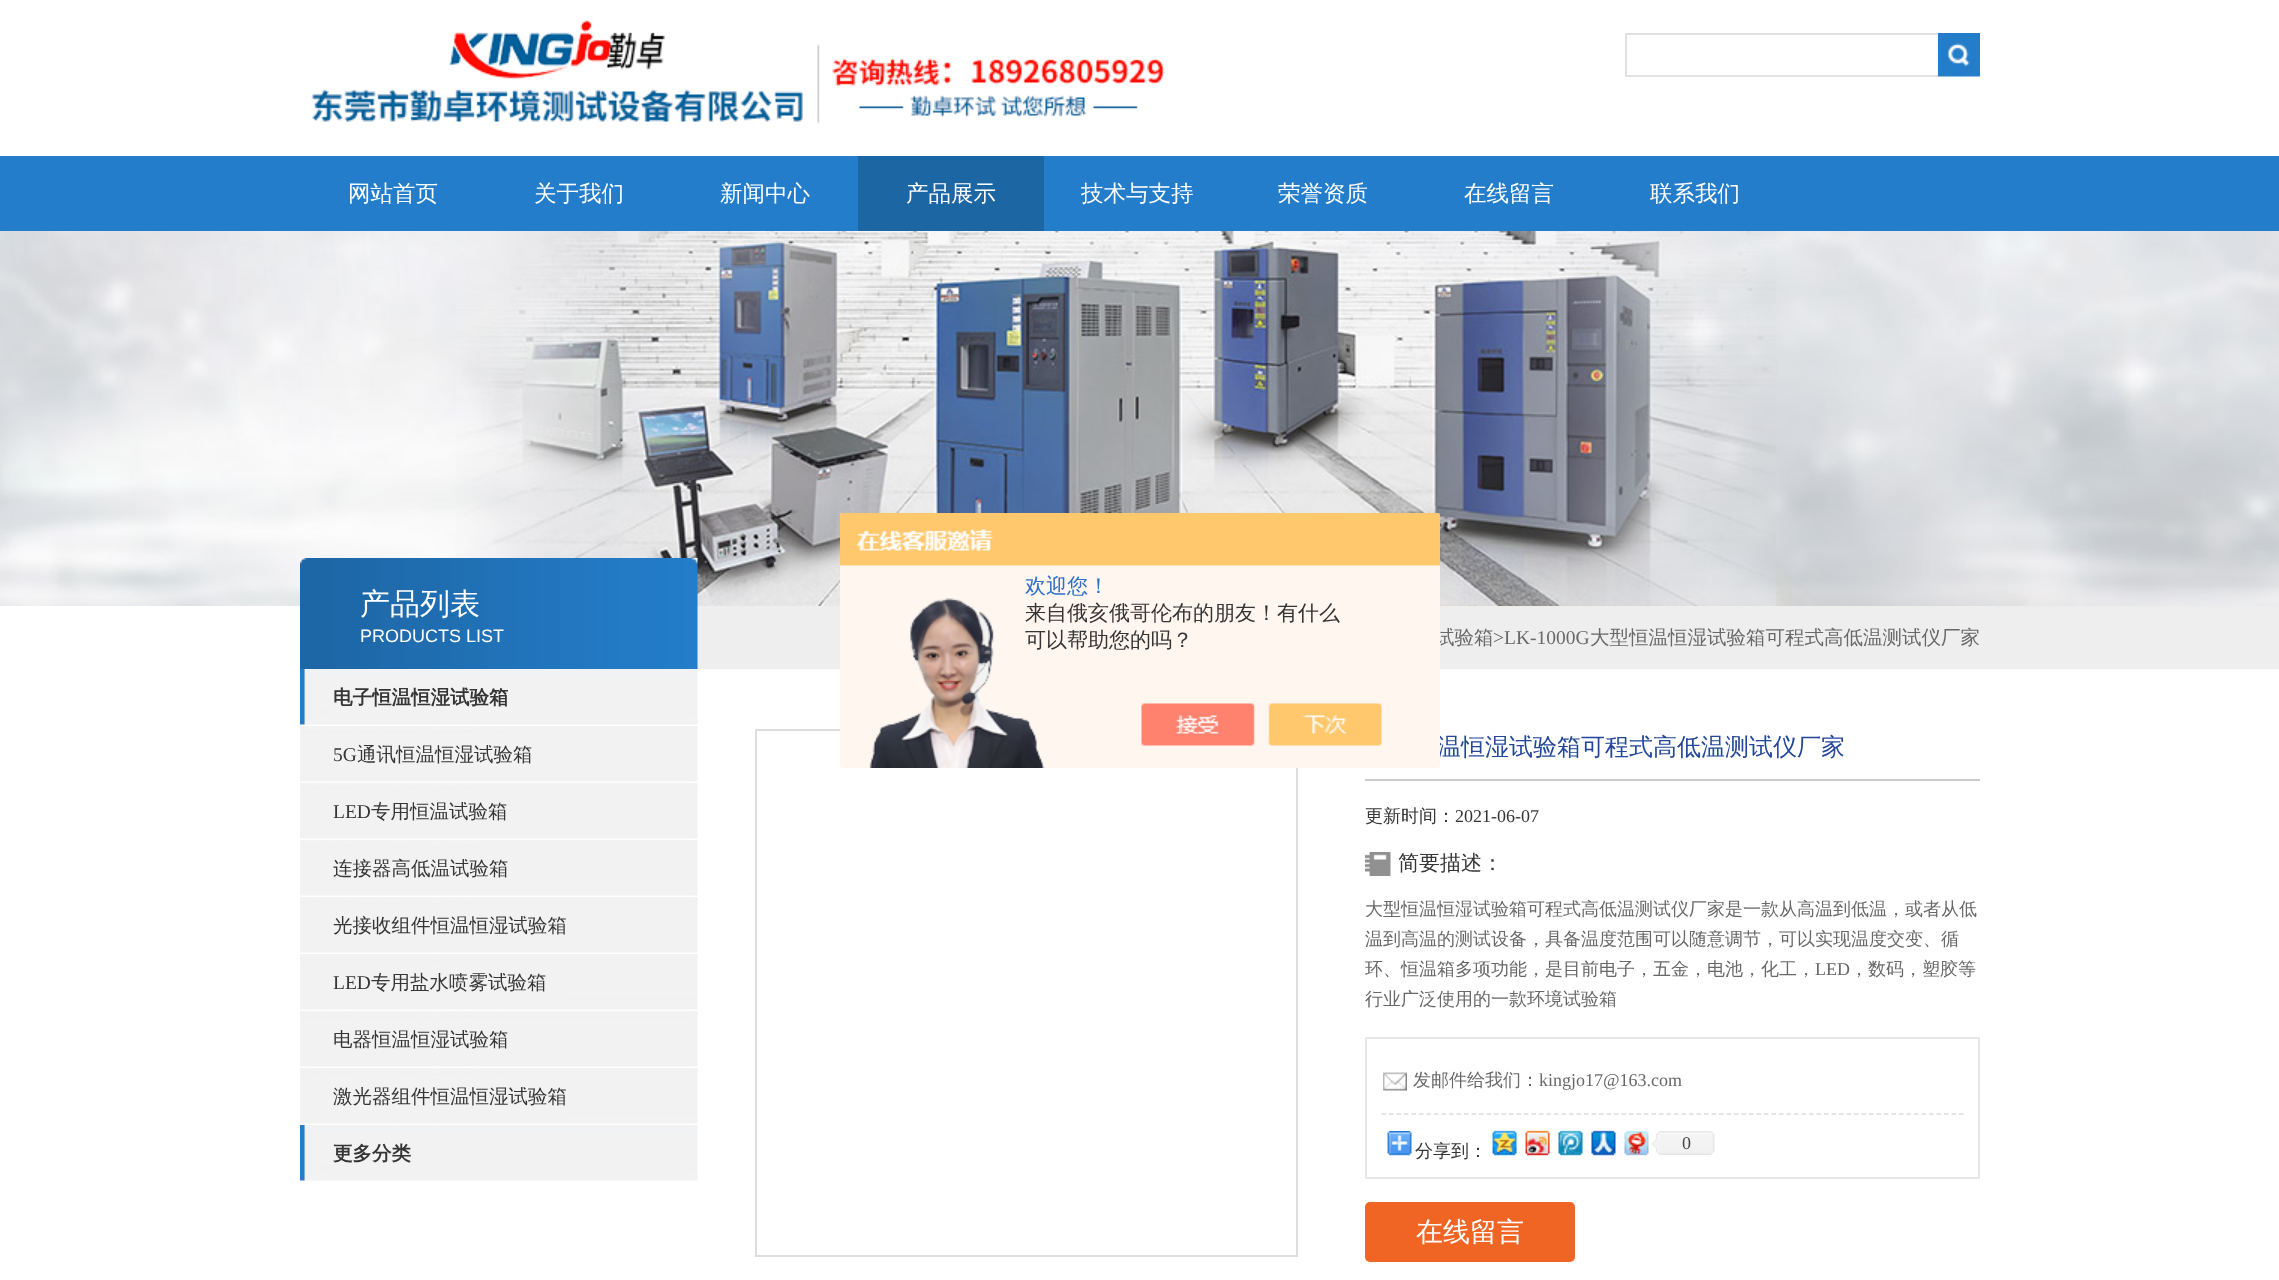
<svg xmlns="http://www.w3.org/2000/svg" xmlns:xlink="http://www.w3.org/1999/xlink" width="2279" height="1280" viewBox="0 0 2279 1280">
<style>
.cls-1{font:500 22.5px WenQuanYi Zen Hei;fill:#ffffff}
.cls-2{font:500 30px WenQuanYi Zen Hei;fill:#ffffff}
.cls-3{font:18px Liberation Sans;fill:#ffffff}
.cls-4{font:bold 19.5px WenQuanYi Zen Hei;fill:#353535}
.cls-5{font:19.5px Liberation Serif;fill:#353535}
.cls-6{font:500 19.5px WenQuanYi Zen Hei;fill:#353535}
.cls-7{font:500 19.5px WenQuanYi Zen Hei;fill:#686868}
.cls-8{font:19.5px Liberation Serif;fill:#686868}
.cls-9{font:500 24px WenQuanYi Zen Hei;fill:#22469a}
.cls-10{font:500 21px WenQuanYi Zen Hei;fill:#353535}
.cls-11{font:500 21px WenQuanYi Zen Hei;fill:#2e6ec6}
.cls-12{font:500 18px WenQuanYi Zen Hei;fill:#353535}
.cls-13{font:18px Liberation Serif;fill:#353535}
.cls-14{font:500 18px WenQuanYi Zen Hei;fill:#686868}
.cls-15{font:18px Liberation Serif;fill:#686868}
.cls-16{font:18px Liberation Serif;fill:#454545}
.cls-17{font:500 27px WenQuanYi Zen Hei;fill:#ffffff}
</style>
<rect width="100%" height="100%" fill="#ffffff"/>
<image xlink:href="image0.png" x="697" y="606" width="1582" height="63"/>
<image xlink:href="image1.png" x="311" y="20" width="854" height="104"/>
<rect fill="#e1e1e1" x="1625" y="33" width="313" height="2"/>
<rect fill="#e1e1e1" x="1625" y="75" width="313" height="2"/>
<rect fill="#e1e1e1" x="1625" y="33" width="2" height="44"/>
<image xlink:href="image2.png" x="1938" y="33" width="42" height="44"/>
<rect fill="#247dca" x="0" y="156" width="2279" height="75"/>
<rect fill="#1d66a4" x="858" y="156" width="186" height="75"/>
<image xlink:href="image3.png" x="0" y="231" width="2279" height="375"/>
<image xlink:href="image5.png" x="300" y="558" width="398" height="111"/>
<image xlink:href="image6.png" x="300" y="669" width="398" height="56"/>
<image xlink:href="image7.png" x="300" y="726" width="398" height="56"/>
<image xlink:href="image7.png" x="300" y="783" width="398" height="56"/>
<image xlink:href="image7.png" x="300" y="840" width="398" height="56"/>
<image xlink:href="image7.png" x="300" y="897" width="398" height="56"/>
<image xlink:href="image7.png" x="300" y="954" width="398" height="56"/>
<image xlink:href="image7.png" x="300" y="1011" width="398" height="56"/>
<image xlink:href="image7.png" x="300" y="1068" width="398" height="56"/>
<image xlink:href="image6.png" x="300" y="1125" width="398" height="56"/>
<rect fill="none" stroke="#dddddd" stroke-width="2" x="756" y="730" width="541" height="526"/>
<rect fill="#cccccc" x="1365" y="779" width="615" height="2"/>
<image xlink:href="image8.png" x="1365" y="852" width="26" height="24"/>
<rect fill="none" stroke="#e6e6e6" stroke-width="2" x="1366" y="1038" width="613" height="140"/>
<image xlink:href="image9.png" x="1383" y="1072" width="24" height="19"/>
<path fill="none" stroke="#dddddd" stroke-width="1.5" stroke-dasharray="4.5 3" d="M1381.5 1114H1963.5"/>
<image xlink:href="image10.png" x="1387" y="1131" width="25" height="25"/>
<image xlink:href="image11.png" x="1492" y="1130" width="25" height="26"/>
<image xlink:href="image12.png" x="1525" y="1130" width="25" height="26"/>
<image xlink:href="image13.png" x="1558" y="1130" width="25" height="26"/>
<image xlink:href="image14.png" x="1591" y="1130" width="25" height="26"/>
<image xlink:href="image15.png" x="1624" y="1130" width="25" height="26"/>
<image xlink:href="image16.png" x="1651" y="1131" width="64" height="24"/>
<rect fill="#f06524" x="1365" y="1202" width="210" height="60" rx="5"/>
<text class="cls-1" x="348" y="201">网站首页</text>
<text class="cls-1" x="534" y="201">关于我们</text>
<text class="cls-1" x="720" y="201">新闻中心</text>
<text class="cls-1" x="906" y="201">产品展示</text>
<text class="cls-1" x="1081" y="201">技术与支持</text>
<text class="cls-1" x="1278" y="201">荣誉资质</text>
<text class="cls-1" x="1464" y="201">在线留言</text>
<text class="cls-1" x="1650" y="201">联系我们</text>
<text class="cls-2" x="360" y="614">产品列表</text>
<text class="cls-3" x="360" y="642">PRODUCTS LIST</text>
<text class="cls-4" x="333" y="704">电子恒温恒湿试验箱</text>
<text class="cls-5" x="333" y="761">5G</text>
<text class="cls-6" x="357" y="761">通讯恒温恒湿试验箱</text>
<text class="cls-5" x="333" y="818">LED</text>
<text class="cls-6" x="371" y="818">专用恒温试验箱</text>
<text class="cls-6" x="333" y="875">连接器高低温试验箱</text>
<text class="cls-6" x="333" y="932">光接收组件恒温恒湿试验箱</text>
<text class="cls-5" x="333" y="989">LED</text>
<text class="cls-6" x="371" y="989">专用盐水喷雾试验箱</text>
<text class="cls-6" x="333" y="1046">电器恒温恒湿试验箱</text>
<text class="cls-6" x="333" y="1103">激光器组件恒温恒湿试验箱</text>
<text class="cls-4" x="333" y="1160">更多分类</text>
<text class="cls-7" x="1435" y="644">试验箱</text>
<text class="cls-8" x="1493" y="644">&gt;LK-1000G</text>
<text class="cls-7" x="1590" y="644">大型恒温恒湿试验箱可程式高低温测试仪厂家</text>
<text class="cls-9" x="1437" y="755">温恒湿试验箱可程式高低温测试仪厂家</text>
<image xlink:href="image4.png" x="840" y="513" width="600" height="255"/>
<text class="cls-10" x="1025" y="647">可以帮助您的吗？</text>
<text class="cls-10" x="1025" y="620">来自俄亥俄哥伦布的朋友！有什么</text>
<text class="cls-11" x="1025" y="593">欢迎您！</text>
<text class="cls-12" x="1365" y="822">更新时间：</text>
<text class="cls-13" x="1455" y="822">2021-06-07</text>
<text class="cls-10" x="1398" y="870">简要描述：</text>
<text class="cls-14"><tspan x="1365" y="915">大型恒温恒湿试验箱可程式高低温测试仪厂家是一款从高温到低温，或者从低</tspan><tspan x="1365" y="945">温到高温的测试设备，具备温度范围可以随意调节，可以实现温度交变、循</tspan><tspan x="1365" y="975">环、恒温箱多项功能，是目前电子，五金，电池，化工，</tspan></text>
<text class="cls-15" x="1815" y="975">LED</text>
<text class="cls-14" x="1850" y="975">，数码，塑胶等</text>
<text class="cls-14" x="1365" y="1005">行业广泛使用的一款环境试验箱</text>
<text class="cls-14" x="1413" y="1086">发邮件给我们：</text>
<text class="cls-15" x="1539" y="1086">kingjo17@163.com</text>
<text class="cls-12" x="1415" y="1157">分享到：</text>
<text class="cls-16" x="1682" y="1149">0</text>
<text class="cls-17" x="1416" y="1241">在线留言</text>
</svg>
